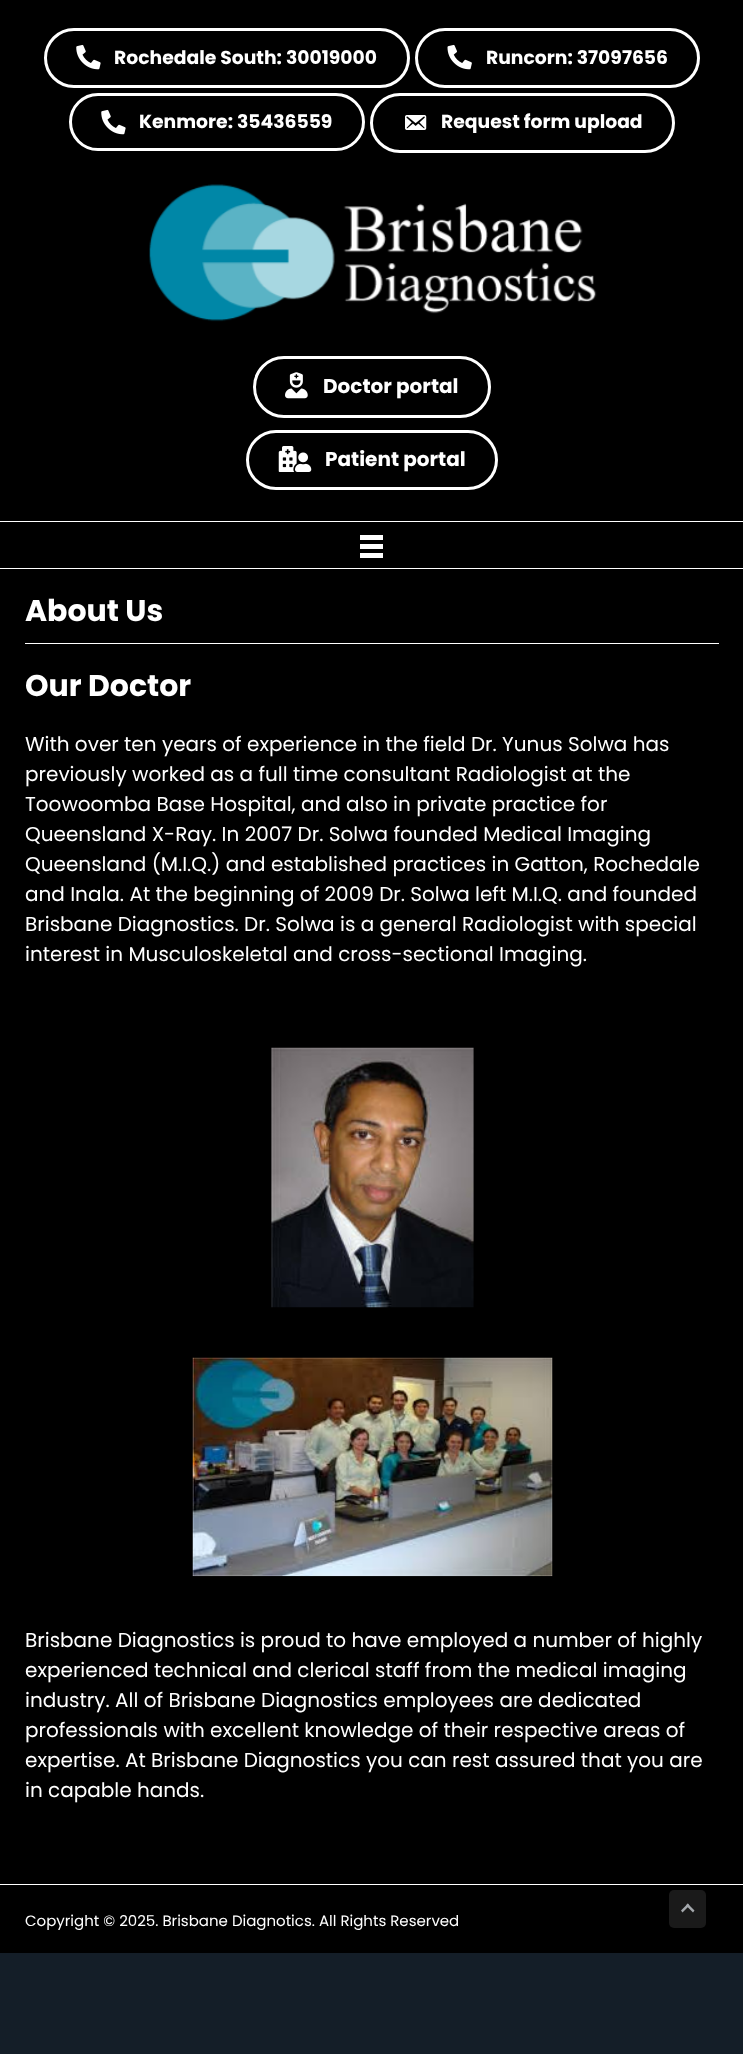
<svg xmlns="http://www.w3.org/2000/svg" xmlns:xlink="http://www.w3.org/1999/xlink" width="743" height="2054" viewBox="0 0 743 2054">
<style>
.cls-1{font:bold 18.75px Poppins;fill:#ffffff}
.cls-2{font:bold 20px Poppins;fill:#ffffff}
.cls-3{font:bold 30px Poppins;fill:#ffffff}
.cls-4{font:20px Poppins;fill:#ffffff}
.cls-5{font:15px Poppins;fill:#ffffff}
</style>
<rect width="100%" height="100%" fill="#141e28"/>
<rect fill="#000000" x="0" y="0" width="743" height="1884"/>
<rect fill="none" stroke="#ffffff" stroke-width="3" x="45.5" y="29.5" width="363" height="57" rx="28.5"/>
<image xlink:href="image0.png" x="76" y="44" width="25" height="26"/>
<rect fill="none" stroke="#ffffff" stroke-width="3" x="416.5" y="29.5" width="282" height="57" rx="28.5"/>
<image xlink:href="image1.png" x="447" y="44" width="25" height="26"/>
<rect fill="none" stroke="#ffffff" stroke-width="3" x="70.5" y="94.5" width="293" height="55" rx="27.5"/>
<image xlink:href="image0.png" x="101" y="109" width="25" height="26"/>
<rect fill="none" stroke="#ffffff" stroke-width="3" x="371.5" y="94.5" width="302" height="57" rx="28.5"/>
<image xlink:href="image2.png" x="405" y="115" width="22" height="15"/>
<image xlink:href="image3.png" x="149" y="184" width="448" height="138"/>
<rect fill="none" stroke="#ffffff" stroke-width="3" x="254.5" y="357.5" width="235" height="59" rx="29.5"/>
<image xlink:href="image4.png" x="285" y="372" width="23" height="27"/>
<rect fill="none" stroke="#ffffff" stroke-width="3" x="247.5" y="431.5" width="249" height="57" rx="28.5"/>
<image xlink:href="image5.png" x="278" y="446" width="34" height="26"/>
<rect fill="#ffffff" x="0" y="521" width="743" height="1"/>
<rect fill="#ffffff" x="0" y="568" width="743" height="1"/>
<rect fill="#ffffff" x="360" y="535" width="23" height="5"/>
<rect fill="#ffffff" x="360" y="544" width="23" height="5"/>
<rect fill="#ffffff" x="360" y="553" width="23" height="5"/>
<rect fill="#ffffff" x="25" y="643" width="694" height="1"/>
<image xlink:href="image6.png" x="271" y="1047" width="203" height="261"/>
<image xlink:href="image7.png" x="192" y="1357" width="361" height="220"/>
<rect fill="#ffffff" x="0" y="1884" width="743" height="1"/>
<rect fill="#000000" x="0" y="1885" width="743" height="68"/>
<rect fill="#1a1a1a" x="669" y="1890" width="37" height="38" rx="5"/>
<path fill="#a4a8ac" d="M681 1910.5L688 1903.5L689.5 1905.5L682.5 1912.5Z"/>
<path fill="#a4a8ac" d="M687.5 1903.5L694.5 1910.5L693 1912.5L686 1905.5Z"/>
<text class="cls-1" x="114" y="64">Rochedale South: 30019000</text>
<text class="cls-1" x="486" y="64">Runcorn: 37097656</text>
<text class="cls-1" x="139" y="128">Kenmore: 35436559</text>
<text class="cls-1" x="441" y="128">Request form upload</text>
<text class="cls-2" x="323" y="393">Doctor portal</text>
<text class="cls-2" x="325" y="466">Patient portal</text>
<text class="cls-3" x="25" y="621">About Us</text>
<text class="cls-3" x="25" y="696">Our Doctor</text>
<text class="cls-4"><tspan x="25" y="751">With over ten years of experience in the field Dr. Yunus Solwa has</tspan><tspan x="25" y="781">previously worked as a full time consultant Radiologist at the</tspan><tspan x="25" y="811">Toowoomba Base Hospital, and also in private practice for</tspan><tspan x="25" y="841">Queensland X-Ray. In 2007 Dr. Solwa founded Medical Imaging</tspan><tspan x="25" y="871">Queensland (M.I.Q.) and established practices in Gatton, Rochedale</tspan><tspan x="25" y="901">and Inala. At the beginning of 2009 Dr. Solwa left M.I.Q. and founded</tspan><tspan x="25" y="931">Brisbane Diagnostics. Dr. Solwa is a general Radiologist with special</tspan><tspan x="25" y="961">interest in Musculoskeletal and cross-sectional Imaging.</tspan></text>
<text class="cls-4"><tspan x="25" y="1647">Brisbane Diagnostics is proud to have employed a number of highly</tspan><tspan x="25" y="1677">experienced technical and clerical staff from the medical imaging</tspan><tspan x="25" y="1707">industry. All of Brisbane Diagnostics employees are dedicated</tspan><tspan x="25" y="1737">professionals with excellent knowledge of their respective areas of</tspan><tspan x="25" y="1767">expertise. At Brisbane Diagnostics you can rest assured that you are</tspan><tspan x="25" y="1797">in capable hands.</tspan></text>
<text class="cls-5" x="25" y="1926">Copyright © 2025. Brisbane Diagnotics. All Rights Reserved</text>
</svg>
